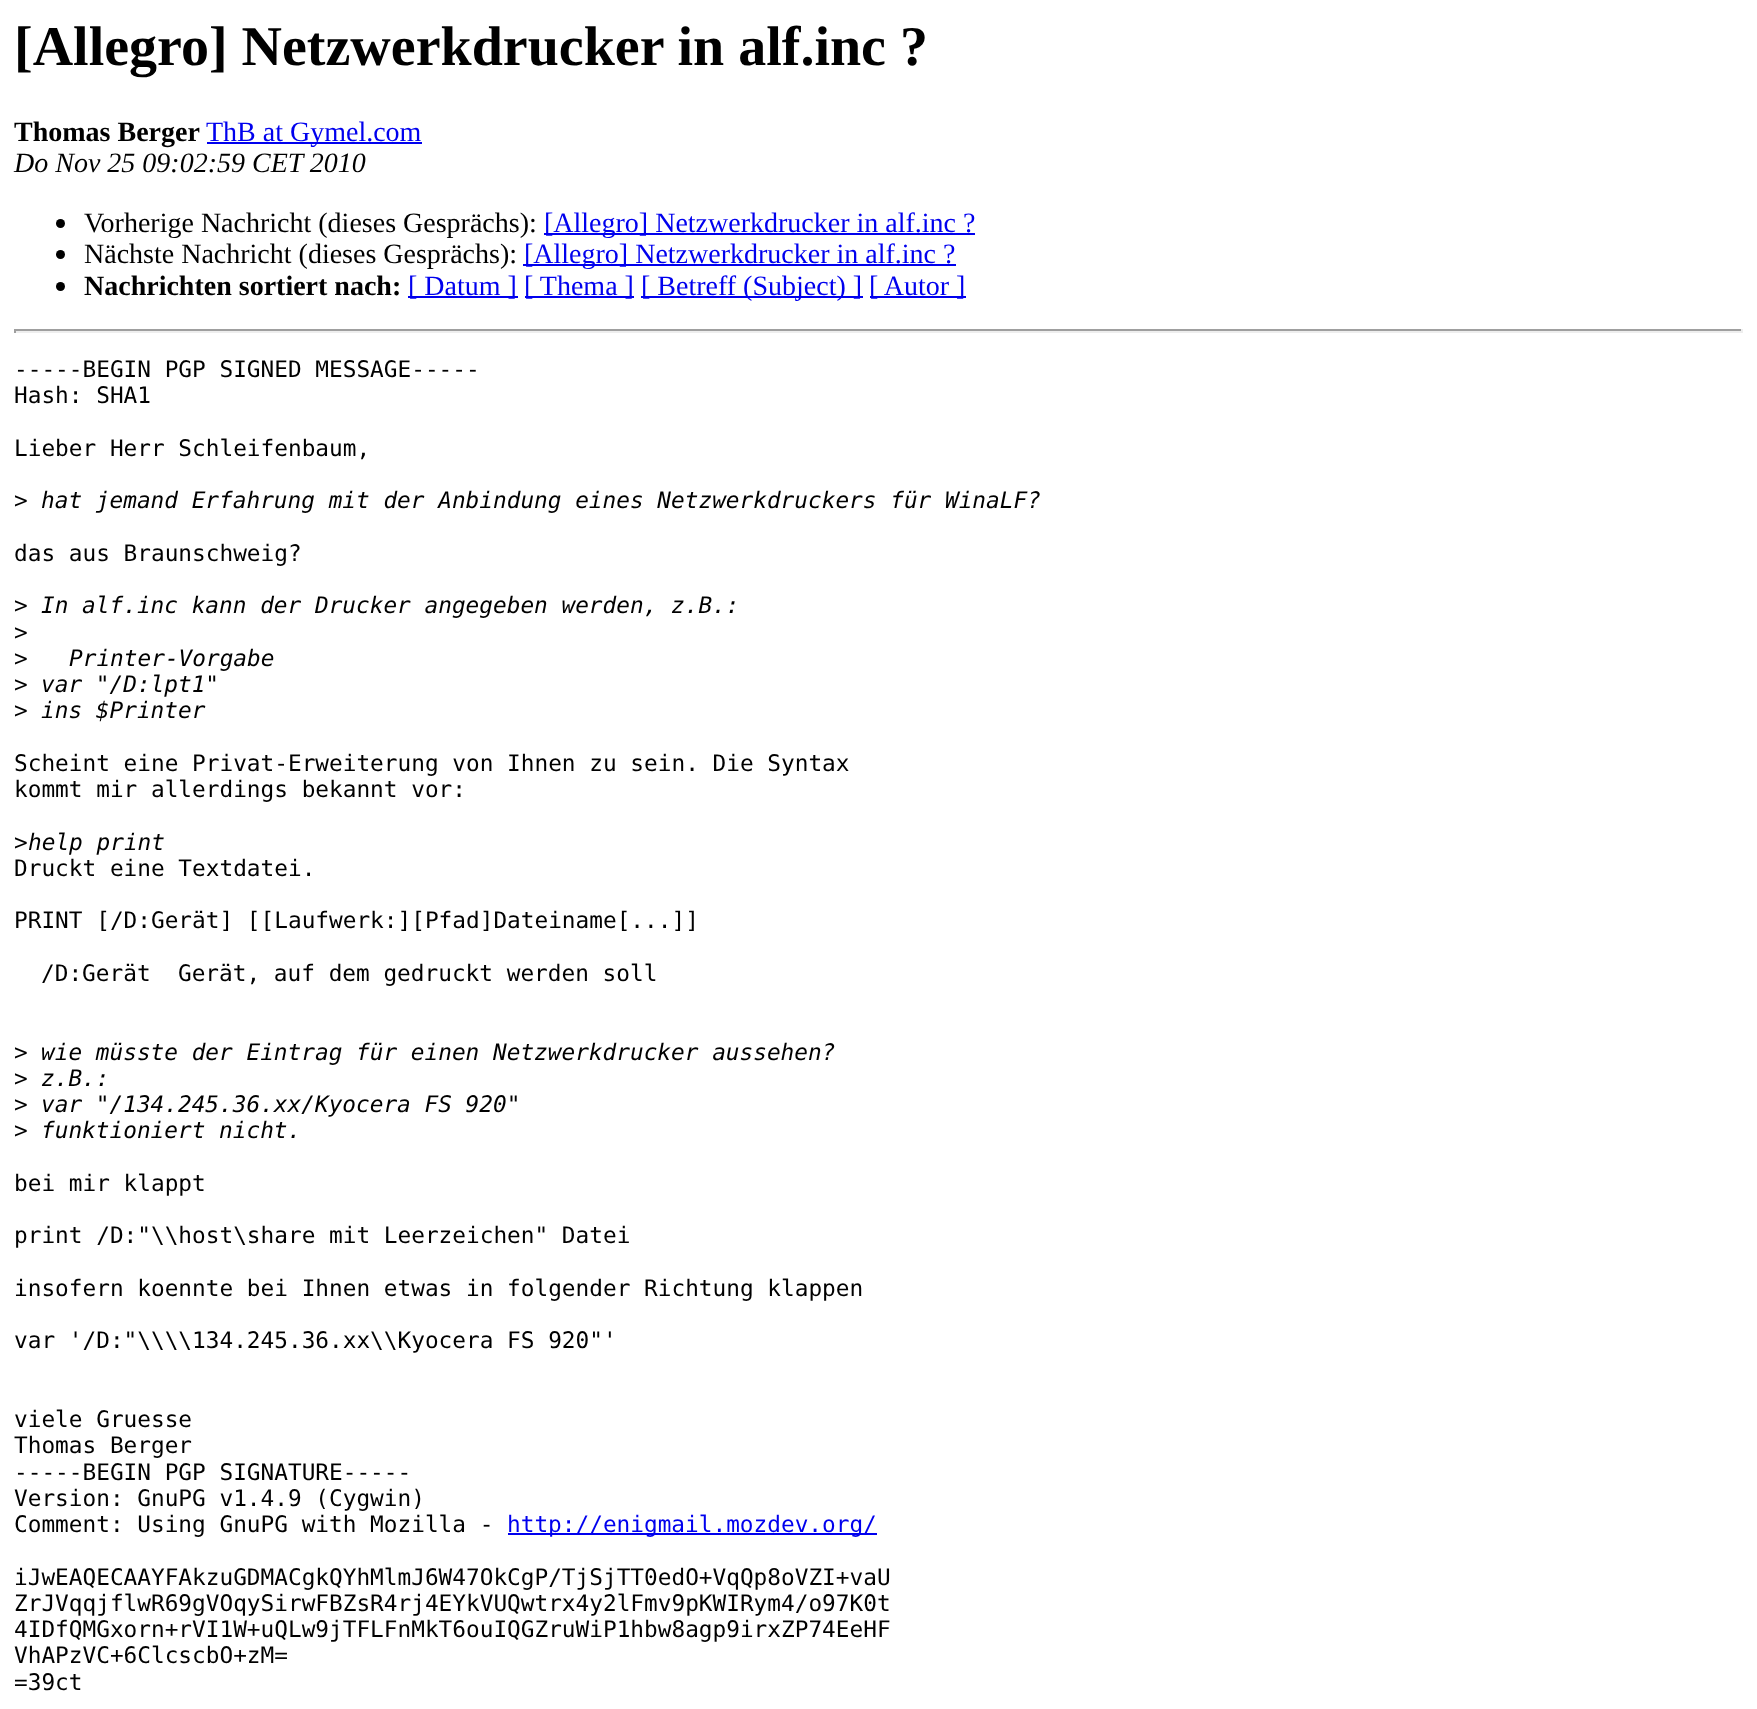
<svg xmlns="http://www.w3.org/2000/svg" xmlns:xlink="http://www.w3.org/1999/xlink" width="1757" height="1709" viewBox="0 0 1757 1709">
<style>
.cls-1{font:bold 56px Liberation Serif;fill:#000000}
.cls-2{font:bold 28px Liberation Serif;fill:#000000}
.cls-3{font:28px Liberation Serif;fill:#0000ee}
.cls-4{font:italic 28px Liberation Serif;fill:#000000}
.cls-5{font:28px Liberation Serif;fill:#000000}
.cls-6{font:22.75px DejaVu Sans Mono;fill:#000000}
.cls-7{font:italic 22.75px DejaVu Sans Mono;fill:#000000}
.cls-8{font:22.75px DejaVu Sans Mono;fill:#0000ee}
</style>
<rect width="100%" height="100%" fill="#ffffff"/>
<rect fill="#0000ee" x="207" y="142" width="215" height="2"/>
<circle fill="#000000" cx="60.5" cy="223.5" r="4.5"/>
<rect fill="#0000ee" x="544" y="233" width="431" height="2"/>
<circle fill="#000000" cx="60.5" cy="254.5" r="4.5"/>
<rect fill="#0000ee" x="523" y="264" width="433" height="2"/>
<circle fill="#000000" cx="60.5" cy="286.5" r="4.5"/>
<rect fill="#0000ee" x="408" y="296" width="110" height="2"/>
<rect fill="#0000ee" x="525" y="296" width="109" height="2"/>
<rect fill="#0000ee" x="641" y="296" width="222" height="2"/>
<rect fill="#0000ee" x="870" y="296" width="96" height="2"/>
<rect fill="#9f9f9f" x="14" y="329" width="1729" height="2"/>
<rect fill="#eeeeee" x="1741" y="329" width="2" height="4"/>
<rect fill="#eeeeee" x="14" y="331" width="1729" height="2"/>
<rect fill="#9f9f9f" x="14" y="329" width="2" height="4"/>
<rect fill="#0000ee" x="508" y="1533" width="369" height="2"/>
<text class="cls-1" x="14" y="65">[Allegro] Netzwerkdrucker in alf.inc ?</text>
<text class="cls-2" x="14" y="141">Thomas Berger</text>
<text class="cls-3" x="206" y="141">ThB at Gymel.com</text>
<text class="cls-4" x="14" y="172">Do Nov 25 09:02:59 CET 2010</text>
<text class="cls-5" x="84" y="232">Vorherige Nachricht (dieses Gesprächs):</text>
<text class="cls-3" x="544" y="232">[Allegro] Netzwerkdrucker in alf.inc ?</text>
<text class="cls-5" x="84" y="263">Nächste Nachricht (dieses Gesprächs):</text>
<text class="cls-3" x="524" y="263">[Allegro] Netzwerkdrucker in alf.inc ?</text>
<text class="cls-2" x="84" y="295">Nachrichten sortiert nach:</text>
<text class="cls-3" x="408" y="295">[ Datum ]</text>
<text class="cls-3" x="524" y="295">[ Thema ]</text>
<text class="cls-3" x="641" y="295">[ Betreff (Subject) ]</text>
<text class="cls-3" x="869" y="295">[ Autor ]</text>
<text class="cls-6"><tspan x="14" y="377">-----BEGIN PGP SIGNED MESSAGE-----</tspan><tspan x="14" y="403">Hash: SHA1</tspan></text>
<text class="cls-6" x="14" y="456">Lieber Herr Schleifenbaum,</text>
<text class="cls-6" x="14" y="508">&gt;</text>
<text class="cls-7" x="41" y="508">hat jemand Erfahrung mit der Anbindung eines Netzwerkdruckers für WinaLF?</text>
<text class="cls-6" x="14" y="561">das aus Braunschweig?</text>
<text class="cls-6" x="14" y="613">&gt;</text>
<text class="cls-7" x="41" y="613">In alf.inc kann der Drucker angegeben werden, z.B.:</text>
<text class="cls-6"><tspan x="14" y="640">&gt;</tspan><tspan x="14" y="666">&gt;</tspan></text>
<text class="cls-7" x="69" y="666">Printer-Vorgabe</text>
<text class="cls-6" x="14" y="692">&gt;</text>
<text class="cls-7" x="41" y="692">var "/D:lpt1"</text>
<text class="cls-6" x="14" y="718">&gt;</text>
<text class="cls-7" x="41" y="718">ins $Printer</text>
<text class="cls-6"><tspan x="14" y="771">Scheint eine Privat-Erweiterung von Ihnen zu sein. Die Syntax</tspan><tspan x="14" y="797">kommt mir allerdings bekannt vor:</tspan></text>
<text class="cls-6" x="14" y="850">&gt;</text>
<text class="cls-7" x="28" y="850">help print</text>
<text class="cls-6" x="14" y="876">Druckt eine Textdatei.</text>
<text class="cls-6" x="14" y="928">PRINT [/D:Gerät] [[Laufwerk:][Pfad]Dateiname[...]]</text>
<text class="cls-6" xml:space="preserve" x="41" y="981">/D:Gerät  Gerät, auf dem gedruckt werden soll</text>
<text class="cls-6" x="14" y="1060">&gt;</text>
<text class="cls-7" x="41" y="1060">wie müsste der Eintrag für einen Netzwerkdrucker aussehen?</text>
<text class="cls-6" x="14" y="1086">&gt;</text>
<text class="cls-7" x="41" y="1086">z.B.:</text>
<text class="cls-6" x="14" y="1112">&gt;</text>
<text class="cls-7" x="41" y="1112">var "/134.245.36.xx/Kyocera FS 920"</text>
<text class="cls-6" x="14" y="1138">&gt;</text>
<text class="cls-7" x="41" y="1138">funktioniert nicht.</text>
<text class="cls-6" x="14" y="1191">bei mir klappt</text>
<text class="cls-6" x="14" y="1243">print /D:"\\host\share mit Leerzeichen" Datei</text>
<text class="cls-6" x="14" y="1296">insofern koennte bei Ihnen etwas in folgender Richtung klappen</text>
<text class="cls-6" x="14" y="1348">var '/D:"\\\\134.245.36.xx\\Kyocera FS 920"'</text>
<text class="cls-6"><tspan x="14" y="1427">viele Gruesse</tspan><tspan x="14" y="1453">Thomas Berger</tspan><tspan x="14" y="1480">-----BEGIN PGP SIGNATURE-----</tspan><tspan x="14" y="1506">Version: GnuPG v1.4.9 (Cygwin)</tspan><tspan x="14" y="1532">Comment: Using GnuPG with Mozilla -</tspan></text>
<text class="cls-8" x="507" y="1532">http://enigmail.mozdev.org/</text>
<text class="cls-6"><tspan x="14" y="1585">iJwEAQECAAYFAkzuGDMACgkQYhMlmJ6W47OkCgP/TjSjTT0edO+VqQp8oVZI+vaU</tspan><tspan x="14" y="1611">ZrJVqqjflwR69gVOqySirwFBZsR4rj4EYkVUQwtrx4y2lFmv9pKWIRym4/o97K0t</tspan><tspan x="14" y="1637">4IDfQMGxorn+rVI1W+uQLw9jTFLFnMkT6ouIQGZruWiP1hbw8agp9irxZP74EeHF</tspan><tspan x="14" y="1663">VhAPzVC+6ClcscbO+zM=</tspan><tspan x="14" y="1690">=39ct</tspan></text>
</svg>
